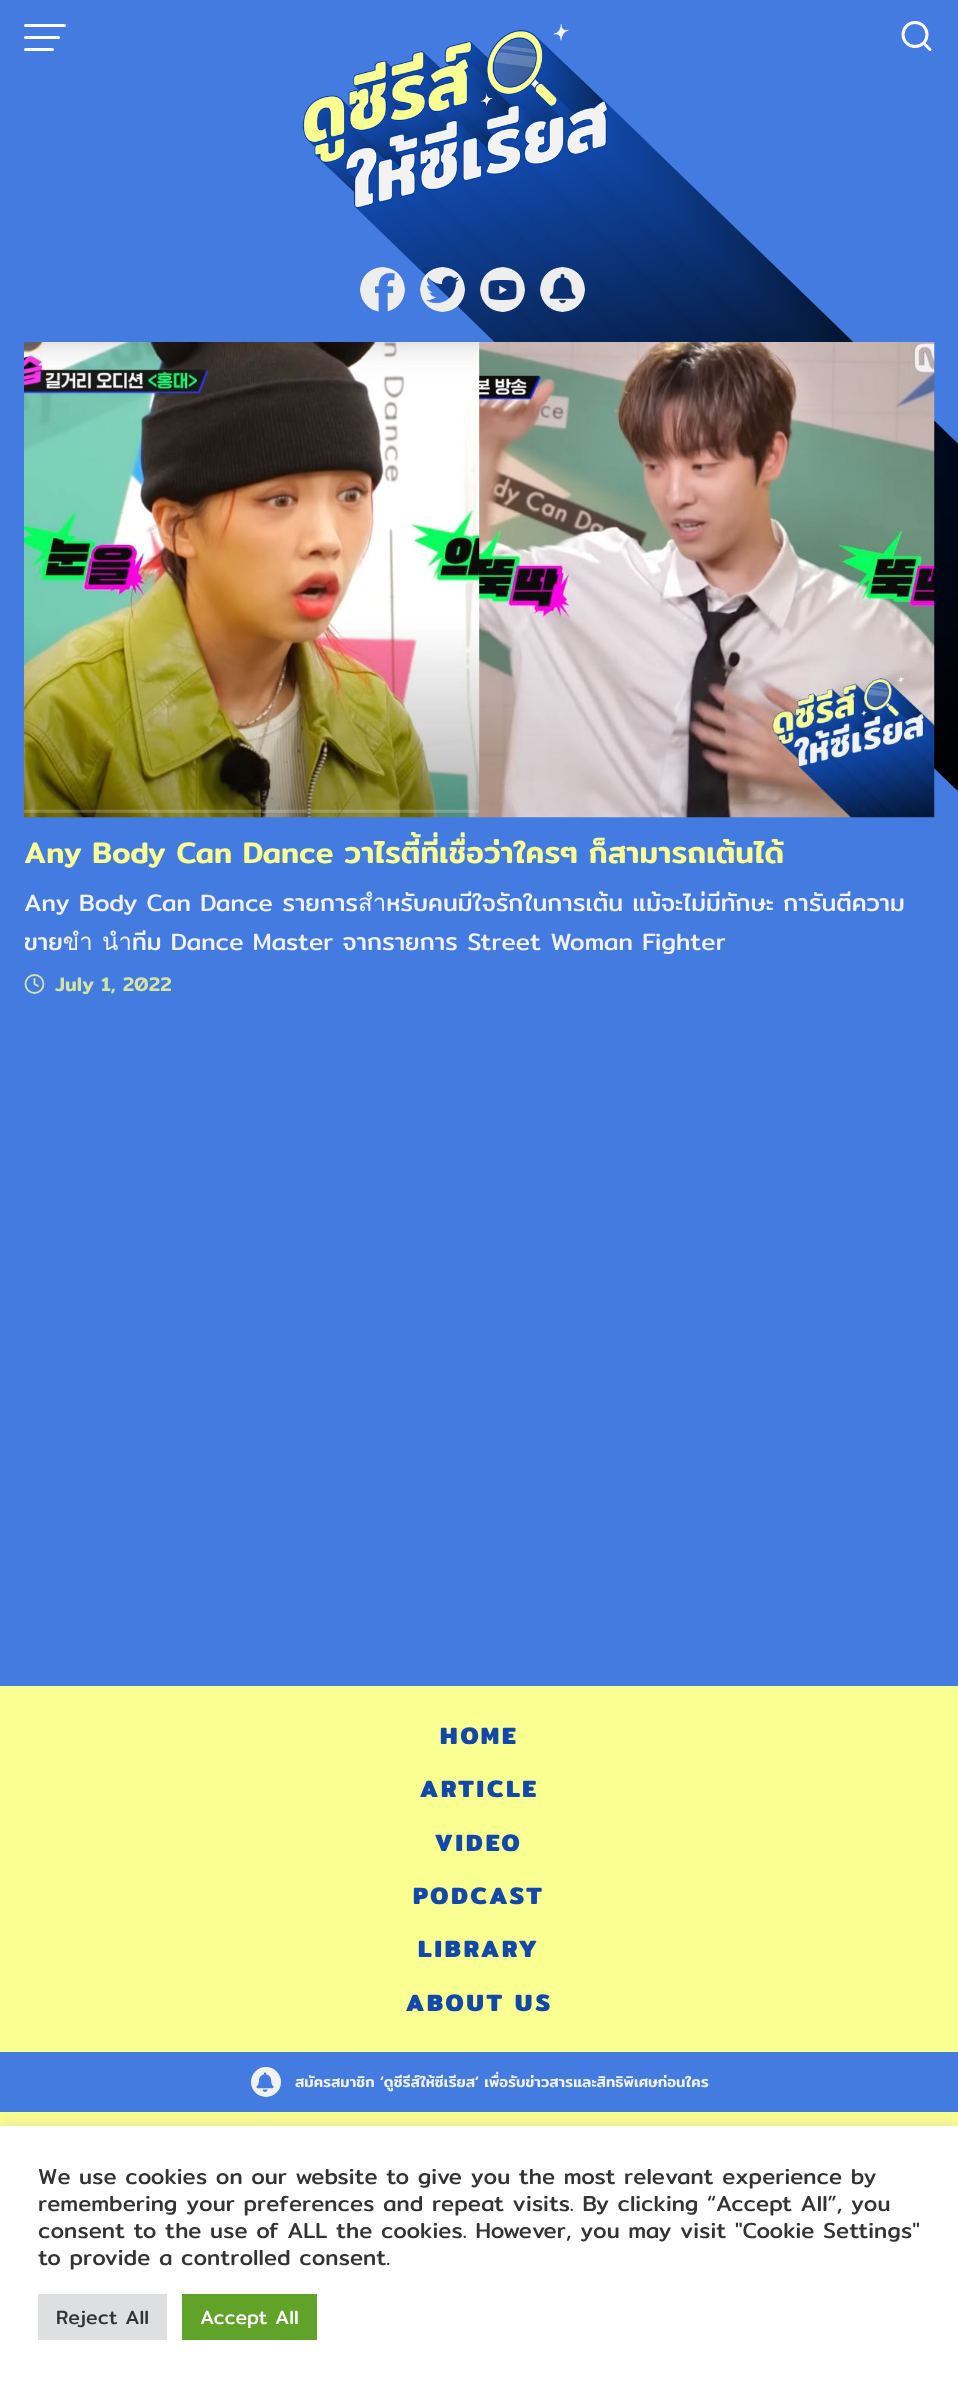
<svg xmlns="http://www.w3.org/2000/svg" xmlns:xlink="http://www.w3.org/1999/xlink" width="958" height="2385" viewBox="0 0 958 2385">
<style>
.cls-1{font:500 30px Mitr;fill:#faff91}
.cls-2{font:24px Mitr;fill:#f2f2f2}
.cls-3{font:500 19.75px Mitr;fill:#d5e5a1}
.cls-4{font:bold 24px Mitr;letter-spacing:3px;fill:#1148a9}
.cls-5{font:500 15px Mitr;fill:#f2f2f2}
.cls-6{font:22px Mitr;fill:#333333}
.cls-7{font:19.5px Mitr;fill:#333333}
.cls-8{font:19.5px Mitr;fill:#ffffff}
</style>
<rect width="100%" height="100%" fill="#437be1"/>
<rect fill="#ffffff" x="24" y="36" width="36" height="3" rx="1.5"/>
<rect fill="#ffffff" x="24" y="24" width="42" height="3" rx="1.5"/>
<rect fill="#ffffff" x="24" y="48" width="30" height="3" rx="1.5"/>
<image xlink:href="image0.png" x="302" y="23" width="656" height="768"/>
<circle fill="none" stroke="#ffffff" stroke-width="3" cx="915" cy="34.5" r="12"/>
<path fill="none" stroke="#ffffff" stroke-width="3" stroke-linecap="round" stroke-linejoin="round" d="M930 49.5L923.5 43"/>
<image xlink:href="image1.png" x="360" y="267" width="45" height="45"/>
<image xlink:href="image2.png" x="420" y="267" width="45" height="45"/>
<image xlink:href="image3.png" x="480" y="267" width="45" height="45"/>
<image xlink:href="image4.png" x="540" y="267" width="45" height="45"/>
<image xlink:href="image5.png" x="24" y="342" width="911" height="476"/>
<circle fill="none" stroke="#d5e5a1" stroke-width="1.8" cx="34.5" cy="984" r="9"/>
<path fill="none" stroke="#d5e5a1" stroke-width="1.8" stroke-linecap="round" stroke-linejoin="round" d="M34.5 979V984L38 986"/>
<rect fill="#faff91" x="0" y="1686" width="958" height="440"/>
<rect fill="#437be1" x="0" y="2052" width="958" height="60"/>
<circle fill="#f2f2f2" cx="266" cy="2082" r="15"/>
<image xlink:href="image6.png" x="256" y="2072" width="18" height="20"/>
<rect fill="#acabab" fill-opacity="0.3" filter="blur(7.5px)" x="0" y="2124" width="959" height="260"/>
<rect fill="#ffffff" x="0" y="2126" width="958" height="259"/>
<rect fill="#dedfe0" x="38" y="2294" width="129" height="46"/>
<rect fill="#61a229" x="182" y="2294" width="135" height="46"/>
<text class="cls-1" x="24" y="863">Any Body Can Dance วาไรตี้ที่เชื่อว่าใครๆ ก็สามารถเต้นได้</text>
<text class="cls-2"><tspan x="24" y="911">Any Body Can Dance รายการสำหรับคนมีใจรักในการเต้น แม้จะไม่มีทักษะ การันตีความ</tspan><tspan x="24" y="950">ขายขำ นำทีม Dance Master จากรายการ Street Woman Fighter</tspan></text>
<text class="cls-3" x="55" y="991">July 1, 2022</text>
<text class="cls-4" x="440" y="1744">HOME</text>
<text class="cls-4" x="420" y="1797">ARTICLE</text>
<text class="cls-4" x="435" y="1851">VIDEO</text>
<text class="cls-4" x="413" y="1904">PODCAST</text>
<text class="cls-4" x="418" y="1957">LIBRARY</text>
<text class="cls-4" x="406" y="2011">ABOUT US</text>
<text class="cls-5" x="295" y="2087">สมัครสมาชิก ‘ดูซีรีส์ให้ซีเรียส’ เพื่อรับข่าวสารและสิทธิพิเศษก่อนใคร</text>
<text class="cls-6"><tspan x="38" y="2184">We use cookies on our website to give you the most relevant experience by</tspan><tspan x="38" y="2211">remembering your preferences and repeat visits. By clicking “Accept All”, you</tspan><tspan x="38" y="2238">consent to the use of ALL the cookies. However, you may visit "Cookie Settings"</tspan><tspan x="38" y="2265">to provide a controlled consent.</tspan></text>
<text class="cls-7" x="56" y="2324">Reject All</text>
<text class="cls-8" x="200" y="2324">Accept All</text>
</svg>
